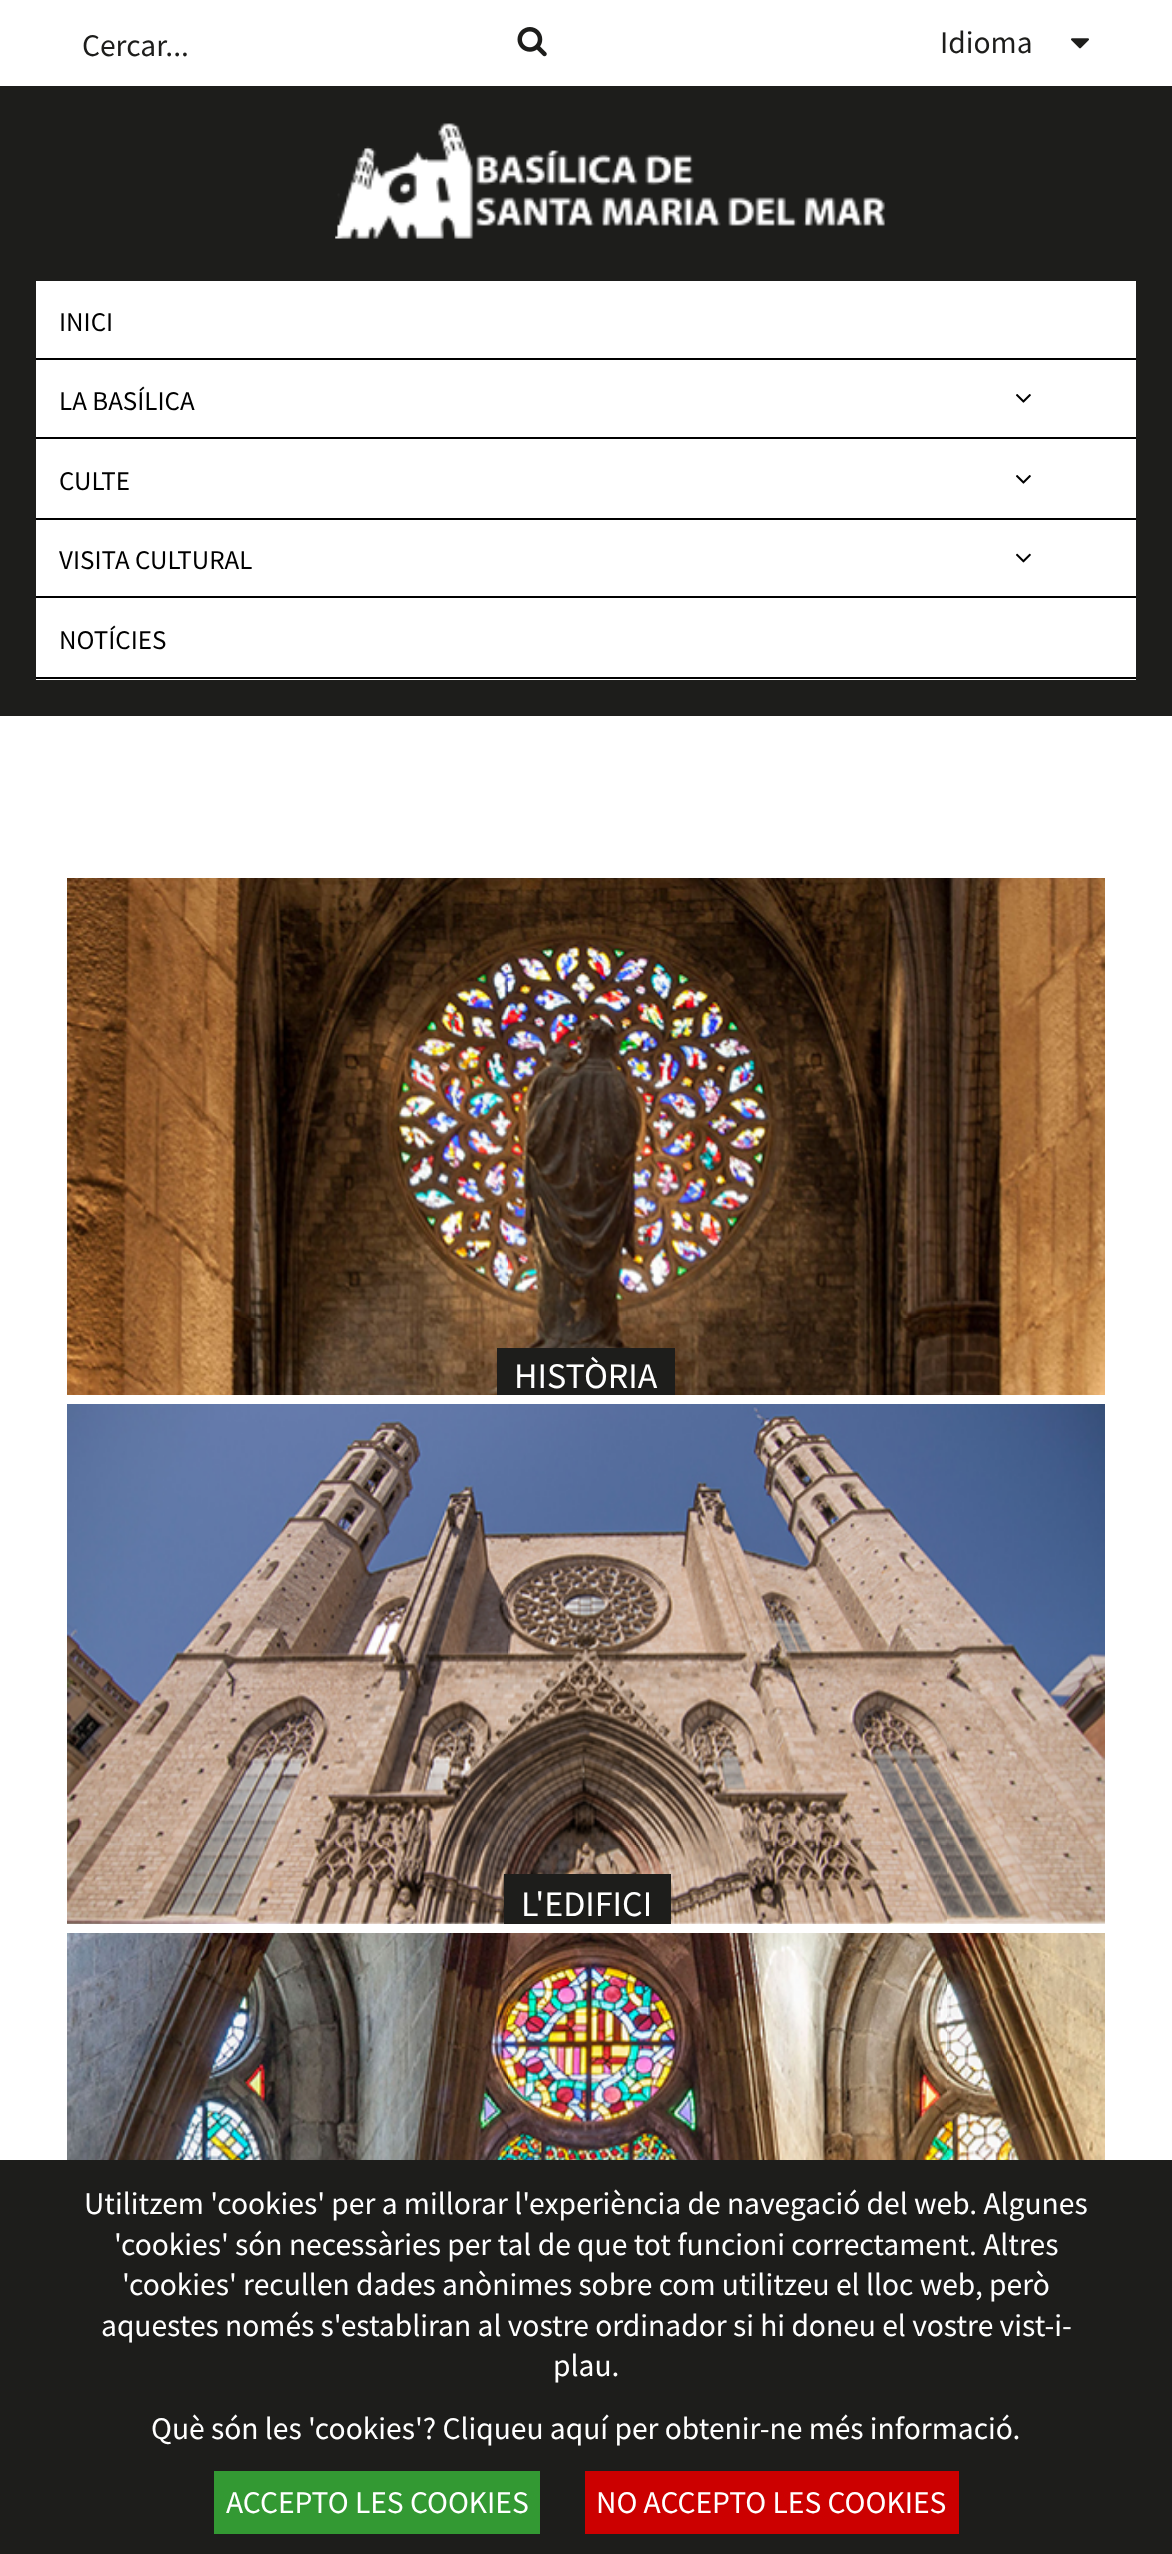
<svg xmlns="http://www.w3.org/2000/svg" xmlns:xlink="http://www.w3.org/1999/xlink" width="1172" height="2554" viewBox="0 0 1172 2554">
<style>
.cls-1{font:31.5px Source Sans Pro;fill:#1d1d1b}
.cls-2{font:27px Source Sans Pro;fill:#000000}
.cls-3{font:36px Source Sans Pro;fill:#ffffff}
.cls-4{font:31.5px Source Sans Pro;fill:#ffffff}
</style>
<rect width="100%" height="100%" fill="#ffffff"/>
<image xlink:href="image0.png" x="517" y="27" width="30" height="30"/>
<image xlink:href="image1.png" x="1071" y="38" width="18" height="11"/>
<rect fill="#1d1d1b" x="0" y="86" width="1172" height="630"/>
<image xlink:href="image2.png" x="335" y="123" width="550" height="116"/>
<rect fill="#ffffff" x="36" y="281" width="1100" height="77"/>
<rect fill="#000000" x="36" y="358" width="1100" height="2"/>
<rect fill="#ffffff" x="36" y="360" width="1100" height="77"/>
<rect fill="#000000" x="36" y="437" width="1100" height="2"/>
<image xlink:href="image3.png" x="1016" y="394" width="15" height="9"/>
<rect fill="#ffffff" x="36" y="439" width="1100" height="79"/>
<rect fill="#000000" x="36" y="518" width="1100" height="2"/>
<image xlink:href="image3.png" x="1016" y="475" width="15" height="9"/>
<rect fill="#ffffff" x="36" y="520" width="1100" height="160"/>
<rect fill="#000000" x="36" y="596" width="1100" height="2"/>
<image xlink:href="image4.png" x="1016" y="553" width="15" height="10"/>
<rect fill="#000000" x="36" y="677" width="1100" height="2"/>
<image xlink:href="image5.png" x="67" y="878" width="1038" height="517"/>
<rect fill="#1d1d1b" x="497" y="1348" width="178" height="47"/>
<image xlink:href="image6.png" x="67" y="1404" width="1038" height="520"/>
<rect fill="#1d1d1b" x="504" y="1874" width="167" height="50"/>
<image xlink:href="image7.png" x="67" y="1933" width="1038" height="227"/>
<rect fill="#1d1d1b" x="0" y="2160" width="1172" height="394"/>
<rect fill="#339933" x="214" y="2471" width="326" height="63"/>
<rect fill="#cc0000" x="585" y="2471" width="374" height="63"/>
<text class="cls-1" x="82" y="56">Cercar...</text>
<text class="cls-1" x="940" y="53">Idioma</text>
<text class="cls-2" x="59" y="331">INICI</text>
<text class="cls-2" x="59" y="410">LA BASÍLICA</text>
<text class="cls-2" x="59" y="490">CULTE</text>
<text class="cls-2" x="59" y="569">VISITA CULTURAL</text>
<text class="cls-2" x="59" y="649">NOTÍCIES</text>
<text class="cls-3" x="514" y="1388">HISTÒRIA</text>
<text class="cls-3" x="521" y="1916">L'EDIFICI</text>
<text class="cls-4" x="84" y="2214">Utilitzem 'cookies' per a millorar l'experiència de navegació del web. Algunes</text>
<text class="cls-4" x="114" y="2255">'cookies' són necessàries per tal de que tot funcioni correctament. Altres</text>
<text class="cls-4" x="122" y="2295">'cookies' recullen dades anònimes sobre com utilitzeu el lloc web, però</text>
<text class="cls-4" x="101" y="2336">aquestes només s'establiran al vostre ordinador si hi doneu el vostre vist-i-</text>
<text class="cls-4" x="553" y="2376">plau.</text>
<text class="cls-4" x="151" y="2439">Què són les 'cookies'? Cliqueu aquí per obtenir-ne més informació.</text>
<text class="cls-4" x="226" y="2513">ACCEPTO LES COOKIES</text>
<text class="cls-4" x="596" y="2513">NO ACCEPTO LES COOKIES</text>
</svg>
